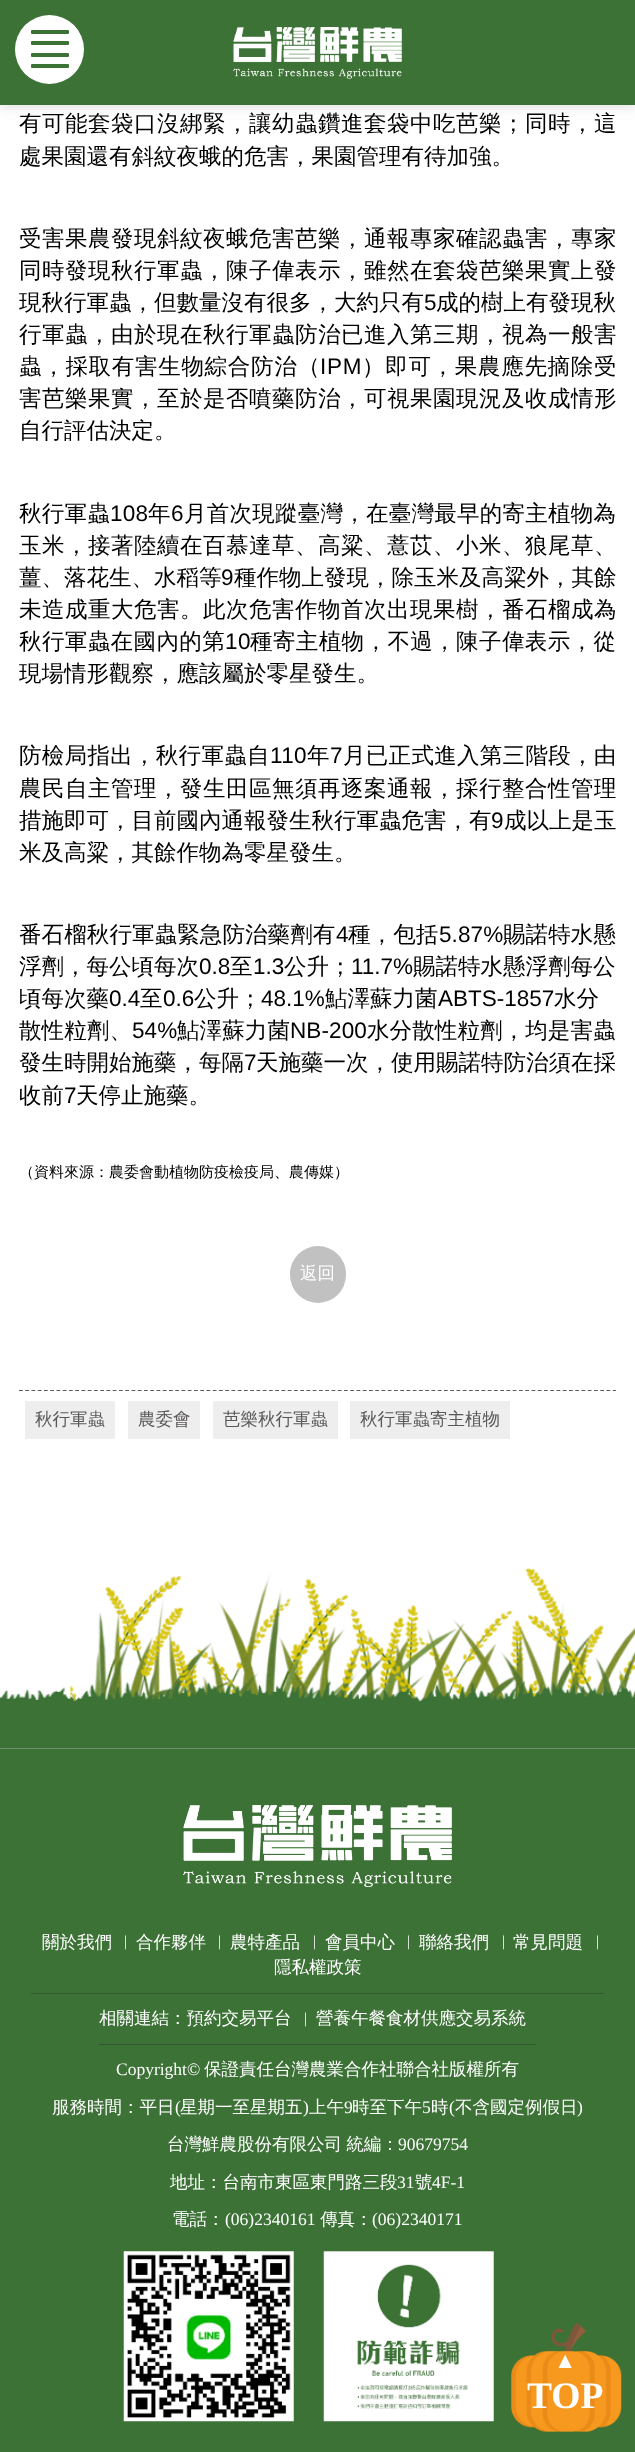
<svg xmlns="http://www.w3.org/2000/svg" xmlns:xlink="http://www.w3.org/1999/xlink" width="635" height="2452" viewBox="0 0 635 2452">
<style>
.cls-1{font:500 22.5px WenQuanYi Zen Hei;letter-spacing:0.5px;fill:#000000}
.cls-2{font:500 22.5px WenQuanYi Zen Hei;fill:#000000}
.cls-3{font:22.5px Liberation Sans;fill:#000000}
.cls-4{font:500 22.5px WenQuanYi Zen Hei;letter-spacing:0.7px;fill:#000000}
.cls-5{font:22.5px Liberation Sans;letter-spacing:0.7px;fill:#000000}
.cls-6{font:500 22.5px WenQuanYi Zen Hei;letter-spacing:0.25px;fill:#000000}
.cls-7{font:22.5px Liberation Sans;letter-spacing:0.25px;fill:#000000}
.cls-8{font:500 22.5px WenQuanYi Zen Hei;letter-spacing:0.4px;fill:#000000}
.cls-9{font:22.5px Liberation Sans;letter-spacing:0.4px;fill:#000000}
.cls-10{font:500 22.5px WenQuanYi Zen Hei;letter-spacing:0.3px;fill:#000000}
.cls-11{font:22.5px Liberation Sans;letter-spacing:0.3px;fill:#000000}
.cls-12{font:500 22.5px WenQuanYi Zen Hei;letter-spacing:0.1px;fill:#000000}
.cls-13{font:22.5px Liberation Sans;letter-spacing:0.1px;fill:#000000}
.cls-14{font:500 15px WenQuanYi Zen Hei;fill:#000000}
.cls-15{font:500 17.5px WenQuanYi Zen Hei;fill:#ffffff}
.cls-16{font:500 17.5px WenQuanYi Zen Hei;fill:#5b5958}
.cls-17{font:15px Liberation Serif;fill:#ffffff}
.cls-18{font:17.5px Liberation Serif;fill:#ffffff}
.cls-19{font:bold 22.5px Liberation Serif;fill:#ffffff}
.cls-20{font:bold 37.5px Liberation Serif;fill:#ffffff}
</style>
<rect width="100%" height="100%" fill="#ffffff"/>
<rect fill="#444444" fill-opacity="0.15" filter="blur(6px)" x="0" y="3" width="635" height="105"/>
<rect fill="#3c7236" x="0" y="0" width="635" height="105"/>
<circle fill="#ffffff" cx="49.5" cy="49.5" r="34.5"/>
<rect fill="#3c7236" x="31" y="30" width="38" height="4" rx="1"/>
<rect fill="#3c7236" x="31" y="41" width="38" height="4" rx="1"/>
<rect fill="#3c7236" x="31" y="53" width="38" height="4" rx="1"/>
<rect fill="#3c7236" x="31" y="64" width="38" height="4" rx="1"/>
<image xlink:href="image0.png" x="233" y="27" width="169" height="52"/>
<rect fill="#c1c1c1" x="290" y="1246" width="56" height="57" rx="28"/>
<path fill="none" stroke="#5b5958" stroke-width="1.2" stroke-dasharray="3.75 2.5" d="M19 1390.5H616"/>
<rect fill="#eeeeee" x="25" y="1401" width="90" height="38"/>
<rect fill="#eeeeee" x="128" y="1401" width="72" height="38"/>
<rect fill="#eeeeee" x="213" y="1401" width="125" height="38"/>
<rect fill="#eeeeee" x="350" y="1401" width="160" height="38"/>
<image xlink:href="image1.png" x="0" y="1568" width="635" height="181"/>
<rect fill="#3c7236" x="0" y="1749" width="635" height="703"/>
<image xlink:href="image2.png" x="183" y="1805" width="269" height="82"/>
<rect fill="#32582e" x="31" y="1993" width="573" height="1"/>
<rect fill="#32582e" x="99" y="2044" width="437" height="1"/>
<image xlink:href="image3.png" x="123" y="2251" width="171" height="171"/>
<image xlink:href="image4.png" x="323" y="2251" width="171" height="171"/>
<image xlink:href="image5.png" x="511" y="2323" width="111" height="109"/>
<text class="cls-1" x="19" y="131">有可能套袋口沒綁緊，讓幼蟲鑽進套袋中吃芭樂；同時，這</text>
<text class="cls-2" x="19" y="164">處果園還有斜紋夜蛾的危害，果園管理有待加強。</text>
<text class="cls-1"><tspan x="19" y="246">受害果農發現斜紋夜蛾危害芭樂，通報專家確認蟲害，專家</tspan><tspan x="19" y="278">同時發現秋行軍蟲，陳子偉表示，雖然在套袋芭樂果實上發</tspan></text>
<text class="cls-2" x="19" y="310">現秋行軍蟲，但數量沒有很多，大約只有</text>
<text class="cls-3" x="424" y="310">5</text>
<text class="cls-2" x="436" y="310">成的樹上有發現秋</text>
<text class="cls-1" x="19" y="342">行軍蟲，由於現在秋行軍蟲防治已進入第三期，視為一般害</text>
<text class="cls-4" x="19" y="374">蟲，採取有害生物綜合防治（</text>
<text class="cls-5" x="320" y="374">IPM</text>
<text class="cls-4" x="362" y="374">）即可，果農應先摘除受</text>
<text class="cls-1" x="19" y="406">害芭樂果實，至於是否噴藥防治，可視果園現況及收成情形</text>
<text class="cls-2" x="19" y="438">自行評估決定。</text>
<text class="cls-6" x="19" y="521">秋行軍蟲</text>
<text class="cls-7" x="110" y="521">108</text>
<text class="cls-6" x="148" y="521">年</text>
<text class="cls-7" x="171" y="521">6</text>
<text class="cls-6" x="184" y="521">月首次現蹤臺灣，在臺灣最早的寄主植物為</text>
<text class="cls-1" x="19" y="553">玉米，接著陸續在百慕達草、高粱、薏苡、小米、狼尾草、</text>
<text class="cls-2" x="19" y="585">薑、落花生、水稻等</text>
<text class="cls-3" x="221" y="585">9</text>
<text class="cls-2" x="234" y="585">種作物上發現，除玉米及高粱外，其餘</text>
<text class="cls-1" x="19" y="617">未造成重大危害。此次危害作物首次出現果樹，番石榴成為</text>
<text class="cls-8" x="19" y="649">秋行軍蟲在國內的第</text>
<text class="cls-9" x="225" y="649">10</text>
<text class="cls-8" x="250" y="649">種寄主植物，不過，陳子偉表示，從</text>
<text class="cls-2" x="19" y="681">現場情形觀察，應該屬於零星發生。</text>
<text class="cls-10" x="19" y="763">防檢局指出，秋行軍蟲自</text>
<text class="cls-11" x="270" y="763">110</text>
<text class="cls-10" x="307" y="763">年</text>
<text class="cls-11" x="330" y="763">7</text>
<text class="cls-10" x="343" y="763">月已正式進入第三階段，由</text>
<text class="cls-1" x="19" y="796">農民自主管理，發生田區無須再逐案通報，採行整合性管理</text>
<text class="cls-2" x="19" y="828">措施即可，目前國內通報發生秋行軍蟲危害，有</text>
<text class="cls-3" x="491" y="828">9</text>
<text class="cls-2" x="504" y="828">成以上是玉</text>
<text class="cls-2" x="19" y="860">米及高粱，其餘作物為零星發生。</text>
<text class="cls-12" x="19" y="942">番石榴秋行軍蟲緊急防治藥劑有</text>
<text class="cls-13" x="336" y="942">4</text>
<text class="cls-12" x="348" y="942">種，包括</text>
<text class="cls-13" x="439" y="942">5.87%</text>
<text class="cls-12" x="503" y="942">賜諾特水懸</text>
<text class="cls-2" x="19" y="974">浮劑，每公頃每次</text>
<text class="cls-3" x="199" y="974">0.8</text>
<text class="cls-2" x="230" y="974">至</text>
<text class="cls-3" x="253" y="974">1.3</text>
<text class="cls-2" x="284" y="974">公升；</text>
<text class="cls-3" x="351" y="974">11.7%</text>
<text class="cls-2" x="413" y="974">賜諾特水懸浮劑每公</text>
<text class="cls-2" x="19" y="1006">頃每次藥</text>
<text class="cls-3" x="109" y="1006">0.4</text>
<text class="cls-2" x="140" y="1006">至</text>
<text class="cls-3" x="163" y="1006">0.6</text>
<text class="cls-2" x="194" y="1006">公升；</text>
<text class="cls-3" x="261" y="1006">48.1%</text>
<text class="cls-2" x="325" y="1006">鮎澤蘇力菌</text>
<text class="cls-3" x="438" y="1006">ABTS-1857</text>
<text class="cls-2" x="554" y="1006">水分</text>
<text class="cls-12" x="19" y="1038">散性粒劑、</text>
<text class="cls-13" x="132" y="1038">54%</text>
<text class="cls-12" x="177" y="1038">鮎澤蘇力菌</text>
<text class="cls-13" x="290" y="1038">NB-200</text>
<text class="cls-12" x="367" y="1038">水分散性粒劑，均是害蟲</text>
<text class="cls-2" x="19" y="1070">發生時開始施藥，每隔</text>
<text class="cls-3" x="244" y="1070">7</text>
<text class="cls-2" x="256" y="1070">天施藥一次，使用賜諾特防治須在採</text>
<text class="cls-2" x="19" y="1103">收前</text>
<text class="cls-3" x="64" y="1103">7</text>
<text class="cls-2" x="76" y="1103">天停止施藥。</text>
<text class="cls-14" x="19" y="1177">（資料來源：農委會動植物防疫檢疫局、農傳媒）</text>
<text class="cls-15" x="300" y="1279">返回</text>
<text class="cls-16" x="35" y="1425">秋行軍蟲</text>
<text class="cls-16" x="138" y="1425">農委會</text>
<text class="cls-16" x="223" y="1425">芭樂秋行軍蟲</text>
<text class="cls-16" x="360" y="1425">秋行軍蟲寄主植物</text>
<text class="cls-15" x="42" y="1948">關於我們</text>
<text class="cls-17" x="124" y="1946">|</text>
<text class="cls-15" x="136" y="1948">合作夥伴</text>
<text class="cls-17" x="218" y="1946">|</text>
<text class="cls-15" x="230" y="1948">農特產品</text>
<text class="cls-17" x="313" y="1946">|</text>
<text class="cls-15" x="325" y="1948">會員中心</text>
<text class="cls-17" x="407" y="1946">|</text>
<text class="cls-15" x="419" y="1948">聯絡我們</text>
<text class="cls-17" x="502" y="1946">|</text>
<text class="cls-15" x="513" y="1948">常見問題</text>
<text class="cls-17" x="596" y="1946">|</text>
<text class="cls-15" x="274" y="1973">隱私權政策</text>
<text class="cls-15" x="99" y="2024">相關連結：預約交易平台</text>
<text class="cls-17" x="304" y="2023">|</text>
<text class="cls-15" x="316" y="2024">營養午餐食材供應交易系統</text>
<text class="cls-18" x="116" y="2075">Copyright©</text>
<text class="cls-15" x="204" y="2075">保證責任台灣農業合作社聯合社版權所有</text>
<text class="cls-15" x="52" y="2113">服務時間：平日</text>
<text class="cls-18" x="175" y="2113">(</text>
<text class="cls-15" x="180" y="2113">星期一至星期五</text>
<text class="cls-18" x="303" y="2113">)</text>
<text class="cls-15" x="309" y="2113">上午</text>
<text class="cls-18" x="344" y="2113">9</text>
<text class="cls-15" x="352" y="2113">時至下午</text>
<text class="cls-18" x="422" y="2113">5</text>
<text class="cls-15" x="431" y="2113">時</text>
<text class="cls-18" x="449" y="2113">(</text>
<text class="cls-15" x="455" y="2113">不含國定例假日</text>
<text class="cls-18" x="577" y="2113">)</text>
<text class="cls-15" x="167" y="2150" word-spacing="-1">台灣鮮農股份有限公司 統編：</text>
<text class="cls-18" x="398" y="2150">90679754</text>
<text class="cls-15" x="170" y="2188">地址：台南市東區東門路三段</text>
<text class="cls-18" x="397" y="2188">31</text>
<text class="cls-15" x="415" y="2188">號</text>
<text class="cls-18" x="432" y="2188">4F-1</text>
<text class="cls-15" x="172" y="2225">電話：</text>
<text class="cls-18" x="225" y="2225">(06)2340161</text>
<text class="cls-15" x="320" y="2225">傳真：</text>
<text class="cls-18" x="372" y="2225">(06)2340171</text>
<text class="cls-19" x="554" y="2368">▲</text>
<text class="cls-20" x="527" y="2408">TOP</text>
</svg>
